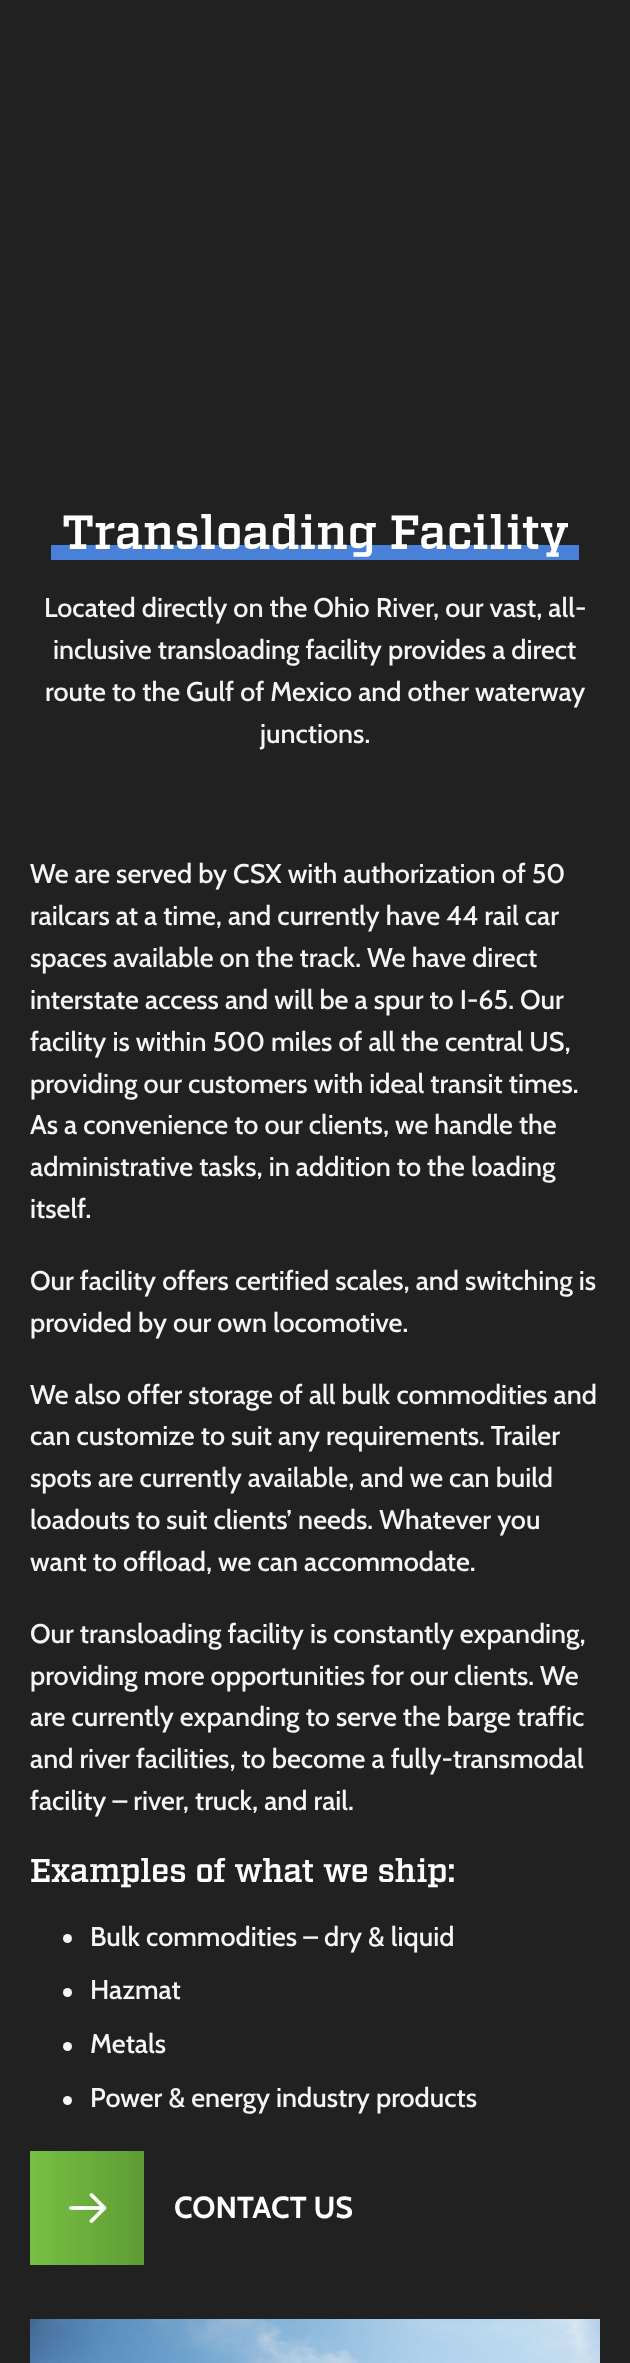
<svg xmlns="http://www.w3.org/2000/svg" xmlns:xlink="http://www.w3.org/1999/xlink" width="630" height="2363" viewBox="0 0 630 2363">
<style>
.cls-1{font:600 48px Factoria;fill:#ffffff}
.cls-2{font:500 27px Cabin;fill:#f5f5f5}
.cls-3{font:600 33px Factoria;fill:#ffffff}
.cls-4{font:bold 30.5px Cabin;fill:#ffffff}
</style>
<defs>
<linearGradient id="g1" gradientUnits="userSpaceOnUse" x1="30" y1="2208" x2="144" y2="2208"><stop offset="0" stop-color="#76c043"/><stop offset="1" stop-color="#5e9c34"/></linearGradient>
</defs>
<rect width="100%" height="100%" fill="#212121"/>
<rect fill="#4980d8" x="51" y="545" width="528" height="15"/>
<circle fill="#f5f5f5" cx="67.5" cy="1938.5" r="4.5"/>
<circle fill="#f5f5f5" cx="67.5" cy="1992.5" r="4.5"/>
<circle fill="#f5f5f5" cx="67.5" cy="2046.5" r="4.5"/>
<circle fill="#f5f5f5" cx="67.5" cy="2100.5" r="4.5"/>
<rect fill="url(#g1)" x="30" y="2151" width="114" height="114"/>
<image xlink:href="image0.png" x="69" y="2193" width="38" height="30"/>
<image xlink:href="image1.png" x="30" y="2319" width="570" height="44"/>
<text class="cls-1" x="62" y="549">Transloading Facility</text>
<text class="cls-2" x="44" y="617">Located directly on the Ohio River, our vast, all-</text>
<text class="cls-2" x="53" y="659">inclusive transloading facility provides a direct</text>
<text class="cls-2" x="45" y="701">route to the Gulf of Mexico and other waterway</text>
<text class="cls-2" x="260" y="743">junctions.</text>
<text class="cls-2"><tspan x="30" y="883">We are served by CSX with authorization of 50</tspan><tspan x="30" y="925">railcars at a time, and currently have 44 rail car</tspan><tspan x="30" y="967">spaces available on the track. We have direct</tspan><tspan x="30" y="1009">interstate access and will be a spur to I-65. Our</tspan><tspan x="30" y="1051">facility is within 500 miles of all the central US,</tspan><tspan x="30" y="1093">providing our customers with ideal transit times.</tspan><tspan x="30" y="1134">As a convenience to our clients, we handle the</tspan><tspan x="30" y="1176">administrative tasks, in addition to the loading</tspan><tspan x="30" y="1218">itself.</tspan></text>
<text class="cls-2"><tspan x="30" y="1290">Our facility offers certified scales, and switching is</tspan><tspan x="30" y="1332">provided by our own locomotive.</tspan></text>
<text class="cls-2"><tspan x="30" y="1404">We also offer storage of all bulk commodities and</tspan><tspan x="30" y="1445">can customize to suit any requirements. Trailer</tspan><tspan x="30" y="1487">spots are currently available, and we can build</tspan><tspan x="30" y="1529">loadouts to suit clients’ needs. Whatever you</tspan><tspan x="30" y="1571">want to offload, we can accommodate.</tspan></text>
<text class="cls-2"><tspan x="30" y="1643">Our transloading facility is constantly expanding,</tspan><tspan x="30" y="1685">providing more opportunities for our clients. We</tspan><tspan x="30" y="1726">are currently expanding to serve the barge traffic</tspan><tspan x="30" y="1768">and river facilities, to become a fully-transmodal</tspan><tspan x="30" y="1810">facility – river, truck, and rail.</tspan></text>
<text class="cls-3" x="30" y="1882">Examples of what we ship:</text>
<text class="cls-2"><tspan x="90" y="1946">Bulk commodities – dry &amp; liquid</tspan><tspan x="90" y="1999">Hazmat</tspan></text>
<text class="cls-2" x="90" y="2053">Metals</text>
<text class="cls-2" x="90" y="2107">Power &amp; energy industry products</text>
<text class="cls-4" x="174" y="2218">CONTACT US</text>
</svg>
